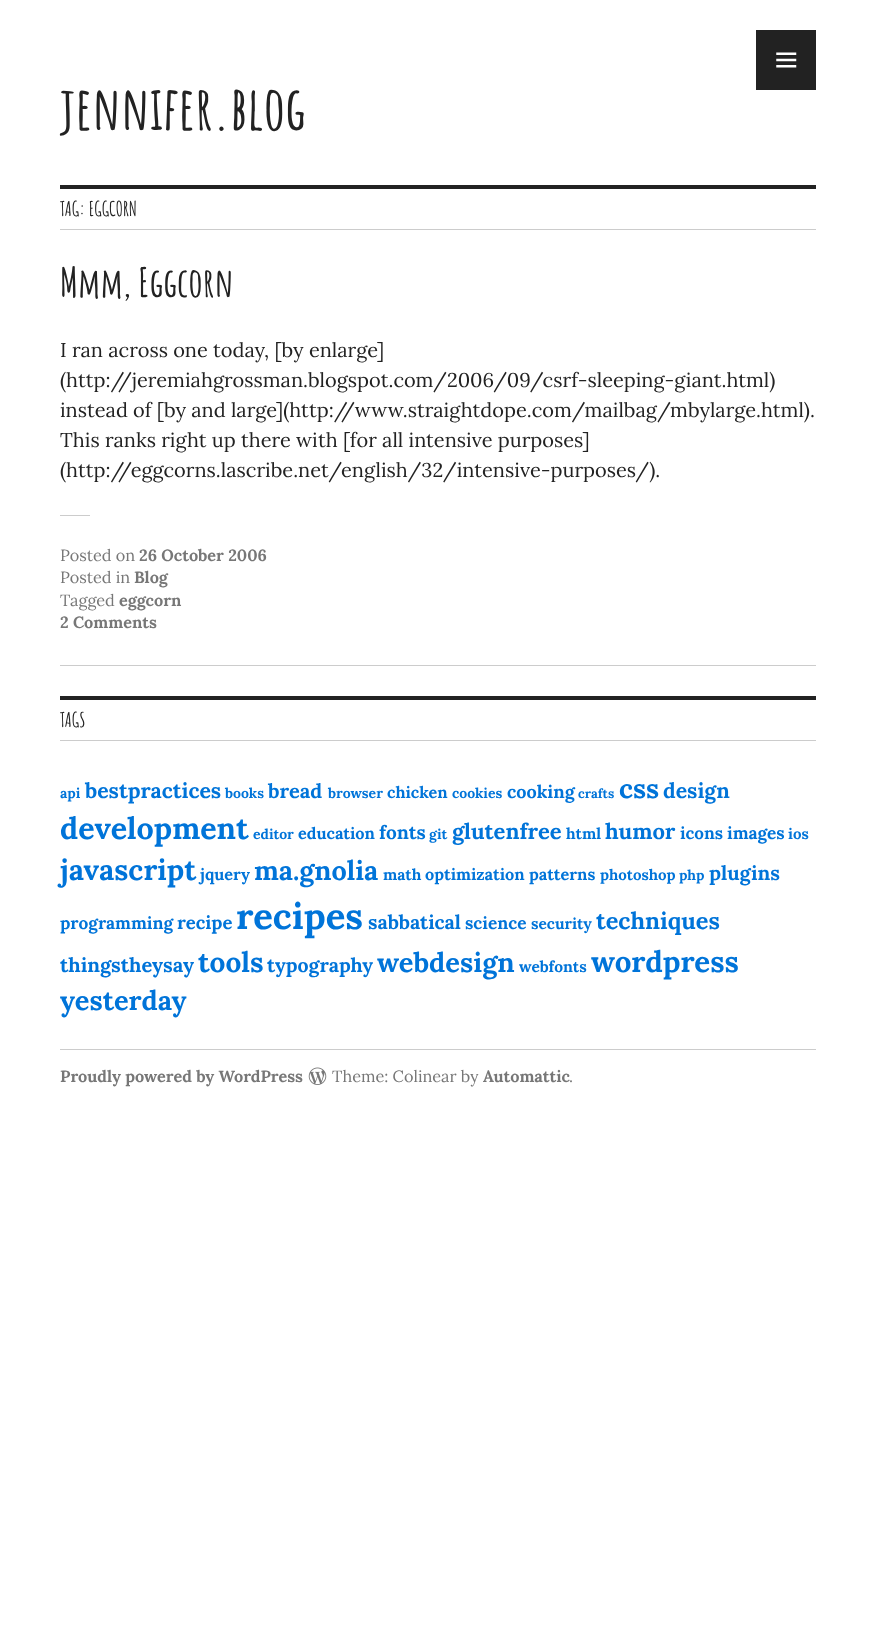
<svg xmlns="http://www.w3.org/2000/svg" xmlns:xlink="http://www.w3.org/1999/xlink" width="876" height="1644" viewBox="0 0 876 1644">
<style>
.cls-1{font:bold 60px Amatic SC;fill:#222222}
.cls-2{font:bold 20px Amatic SC;fill:#222222}
.cls-3{font:bold 40px Amatic SC;fill:#222222}
.cls-4{font:20px Lora;fill:#222222}
.cls-5{font:16.25px Lora;fill:#777777}
.cls-6{font:bold 16.25px Lora;fill:#777777}
.cls-7{font:bold 14px Lora;fill:#0074d9}
.cls-8{font:bold 21.25px Lora;fill:#0074d9}
.cls-9{font:bold 20px Lora;fill:#0074d9}
.cls-10{font:bold 16.25px Lora;fill:#0074d9}
.cls-11{font:bold 18px Lora;fill:#0074d9}
.cls-12{font:bold 13px Lora;fill:#0074d9}
.cls-13{font:bold 27px Lora;fill:#0074d9}
.cls-14{font:bold 30.5px Lora;fill:#0074d9}
.cls-15{font:bold 19px Lora;fill:#0074d9}
.cls-16{font:bold 22px Lora;fill:#0074d9}
.cls-17{font:bold 15.5px Lora;fill:#0074d9}
.cls-18{font:bold 17px Lora;fill:#0074d9}
.cls-19{font:bold 17.25px Lora;fill:#0074d9}
.cls-20{font:bold 15px Lora;fill:#0074d9}
.cls-21{font:bold 29px Lora;fill:#0074d9}
.cls-22{font:bold 18.5px Lora;fill:#0074d9}
.cls-23{font:bold 36.5px Lora;fill:#0074d9}
.cls-24{font:bold 19.5px Lora;fill:#0074d9}
.cls-25{font:bold 23.5px Lora;fill:#0074d9}
.cls-26{font:bold 28px Lora;fill:#0074d9}
.cls-27{font:bold 27.25px Lora;fill:#0074d9}
.cls-28{font:bold 29.5px Lora;fill:#0074d9}
</style>
<rect width="100%" height="100%" fill="#ffffff"/>
<rect fill="#222222" x="756" y="30" width="60" height="60"/>
<image xlink:href="image0.png" x="776" y="52" width="21" height="16"/>
<rect fill="#222222" x="60" y="185" width="756" height="4"/>
<rect fill="#cccccc" x="60" y="229" width="756" height="1"/>
<rect fill="#cccccc" x="60" y="665" width="756" height="1"/>
<rect fill="#cccccc" x="60" y="515" width="30" height="1"/>
<rect fill="#222222" x="60" y="696" width="756" height="4"/>
<rect fill="#cccccc" x="60" y="740" width="756" height="1"/>
<rect fill="#cccccc" x="60" y="1049" width="756" height="1"/>
<image xlink:href="image1.png" x="308" y="1067" width="19" height="18"/>
<text class="cls-1" x="60" y="130">jennifer.blog</text>
<text class="cls-2" x="60" y="216">TAG: EGGCORN</text>
<text class="cls-3" x="60" y="297">Mmm, Eggcorn</text>
<text class="cls-4"><tspan x="60" y="357">I ran across one today, [by enlarge]</tspan><tspan x="60" y="387">(http://jeremiahgrossman.blogspot.com/2006/09/csrf-sleeping-giant.html)</tspan><tspan x="60" y="417">instead of [by and large](http://www.straightdope.com/mailbag/mbylarge.html).</tspan><tspan x="60" y="447">This ranks right up there with [for all intensive purposes]</tspan><tspan x="60" y="477">(http://eggcorns.lascribe.net/english/32/intensive-purposes/).</tspan></text>
<text class="cls-5" x="60" y="561">Posted on</text>
<text class="cls-6" x="139" y="561">26 October 2006</text>
<text class="cls-5" x="60" y="583">Posted in</text>
<text class="cls-6" x="134" y="583">Blog</text>
<text class="cls-5" x="60" y="606">Tagged</text>
<text class="cls-6" x="119" y="606">eggcorn</text>
<text class="cls-6" x="60" y="628">2 Comments</text>
<text class="cls-2" x="60" y="727">TAGS</text>
<text class="cls-7" x="60" y="798">api</text>
<text class="cls-8" x="85" y="798">bestpractices</text>
<text class="cls-7" x="225" y="798">books</text>
<text class="cls-9" x="268" y="798">bread</text>
<text class="cls-7" x="328" y="798">browser</text>
<text class="cls-10" x="387" y="798">chicken</text>
<text class="cls-7" x="452" y="798">cookies</text>
<text class="cls-11" x="507" y="798">cooking</text>
<text class="cls-12" x="578" y="798">crafts</text>
<text class="cls-13" x="619" y="798">css</text>
<text class="cls-8" x="663" y="798">design</text>
<text class="cls-14" x="60" y="839">development</text>
<text class="cls-7" x="253" y="839">editor</text>
<text class="cls-10" x="298" y="839">education</text>
<text class="cls-15" x="379" y="839">fonts</text>
<text class="cls-7" x="429" y="839">git</text>
<text class="cls-16" x="452" y="839">glutenfree</text>
<text class="cls-17" x="566" y="839">html</text>
<text class="cls-16" x="605" y="839">humor</text>
<text class="cls-18" x="680" y="839">icons</text>
<text class="cls-19" x="727" y="839">images</text>
<text class="cls-20" x="788" y="839">ios</text>
<text class="cls-21" x="60" y="880">javascript</text>
<text class="cls-10" x="200" y="880">jquery</text>
<text class="cls-13" x="254" y="880">ma.gnolia</text>
<text class="cls-17" x="383" y="880">math</text>
<text class="cls-10" x="425" y="880">optimization patterns</text>
<text class="cls-20" x="600" y="880">photoshop</text>
<text class="cls-7" x="679" y="880">php</text>
<text class="cls-9" x="709" y="880">plugins</text>
<text class="cls-19" x="60" y="929">programming</text>
<text class="cls-22" x="177" y="929">recipe</text>
<text class="cls-23" x="236" y="929">recipes</text>
<text class="cls-24" x="368" y="929">sabbatical</text>
<text class="cls-19" x="465" y="929">science</text>
<text class="cls-17" x="531" y="929">security</text>
<text class="cls-25" x="596" y="929">techniques</text>
<text class="cls-9" x="60" y="972">thingstheysay</text>
<text class="cls-26" x="198" y="972">tools</text>
<text class="cls-24" x="267" y="972">typography</text>
<text class="cls-27" x="377" y="972">webdesign</text>
<text class="cls-17" x="519" y="972">webfonts</text>
<text class="cls-28" x="591" y="972">wordpress</text>
<text class="cls-27" x="60" y="1010">yesterday</text>
<text class="cls-6" x="60" y="1082">Proudly powered by WordPress</text>
<text class="cls-5" x="332" y="1082">Theme: Colinear by</text>
<text class="cls-6" x="483" y="1082">Automattic</text>
<text class="cls-5" x="569" y="1082">.</text>
</svg>
